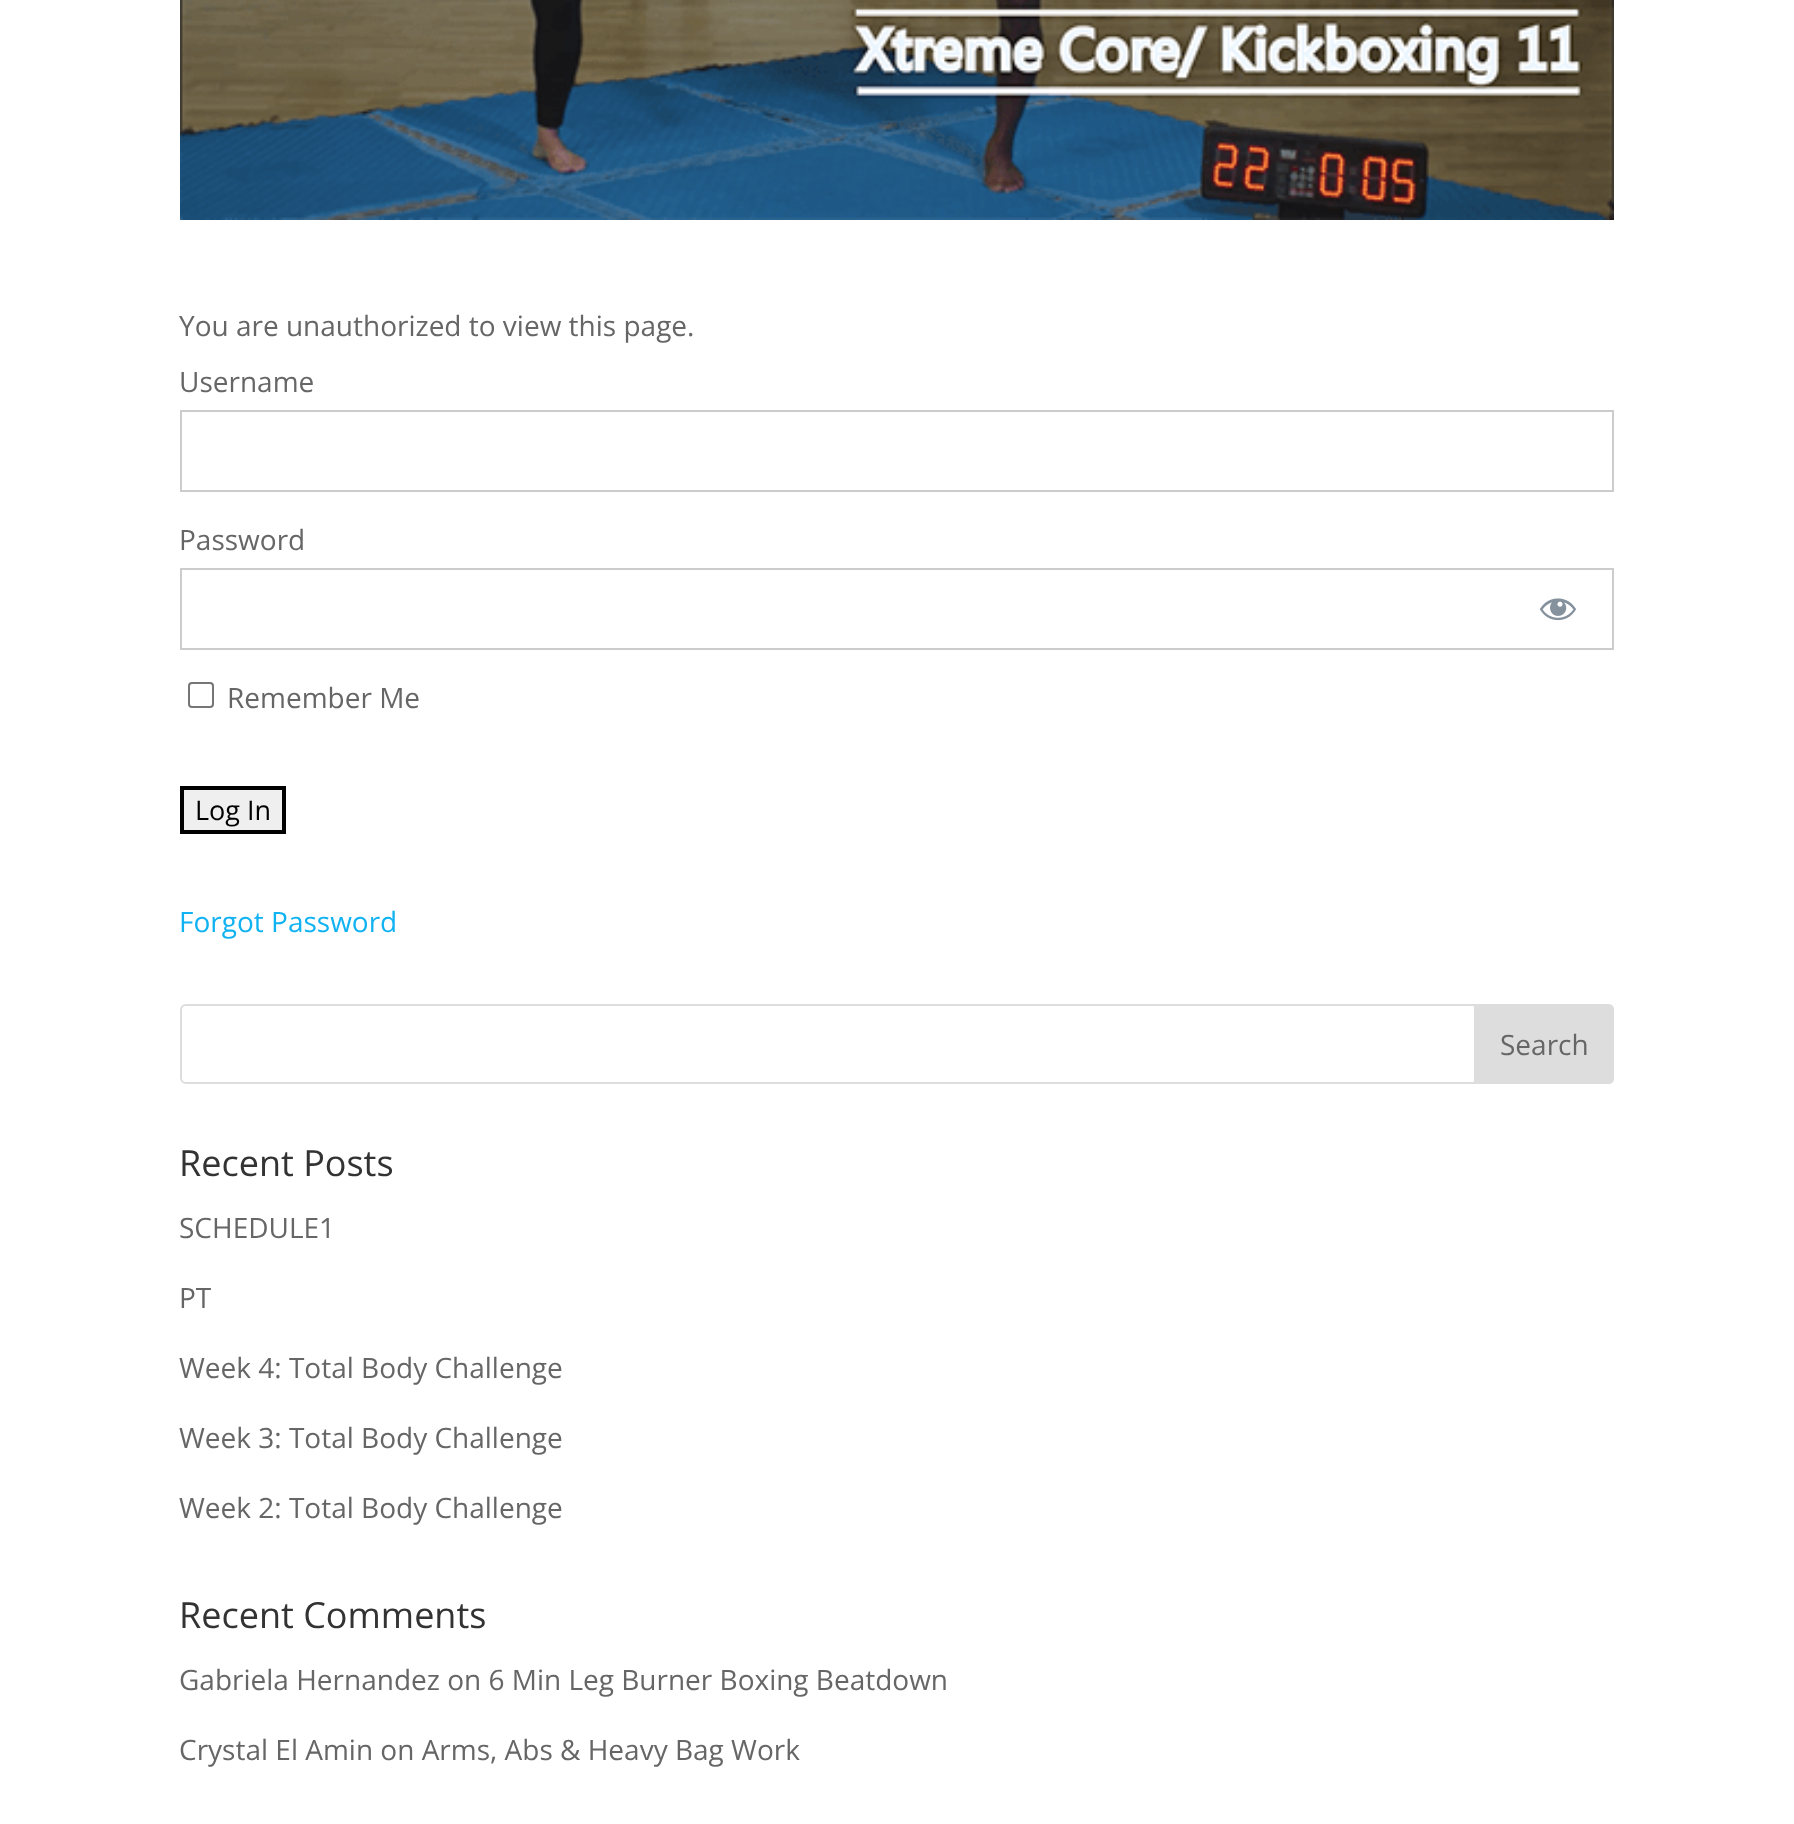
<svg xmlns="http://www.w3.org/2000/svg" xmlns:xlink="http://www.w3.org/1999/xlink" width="1794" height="1824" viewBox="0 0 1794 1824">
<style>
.cls-1{font:28px Open Sans;fill:#666666}
.cls-2{font:27px Open Sans;fill:#000000}
.cls-3{font:28px Open Sans;fill:#10b2f2}
.cls-4{font:36px Open Sans;fill:#333333}
</style>
<rect width="100%" height="100%" fill="#ffffff"/>
<image xlink:href="image0.png" x="180" y="0" width="1434" height="220"/>
<rect fill="none" stroke="#cccccc" stroke-width="2" x="181" y="411" width="1432" height="80"/>
<rect fill="none" stroke="#cccccc" stroke-width="2" x="181" y="569" width="1432" height="80"/>
<image xlink:href="image1.png" x="1539" y="598" width="38" height="23"/>
<rect fill="none" stroke="#767676" stroke-width="2" x="189" y="683" width="24" height="24" rx="3"/>
<rect fill="#efefef" stroke="#000000" stroke-width="4" x="182" y="788" width="102" height="44"/>
<rect fill="none" stroke="#dddddd" stroke-width="2" x="181" y="1005" width="1432" height="78" rx="5"/>
<path fill="#dddddd" stroke="#dddddd" stroke-width="2" d="M1475 1005H1608C1611 1005 1613 1007 1613 1010V1078C1613 1081 1611 1083 1608 1083H1475Z"/>
<text class="cls-1" x="179" y="336">You are unauthorized to view this page.</text>
<text class="cls-1" x="179" y="392">Username</text>
<text class="cls-1" x="179" y="550">Password</text>
<text class="cls-1" x="227" y="708">Remember Me</text>
<text class="cls-2" x="195" y="820">Log In</text>
<text class="cls-3" x="179" y="932">Forgot Password</text>
<text class="cls-1" x="1500" y="1055">Search</text>
<text class="cls-4" x="179" y="1176">Recent Posts</text>
<text class="cls-1" x="179" y="1238">SCHEDULE1</text>
<text class="cls-1" x="179" y="1308">PT</text>
<text class="cls-1" x="179" y="1378">Week 4: Total Body Challenge</text>
<text class="cls-1" x="179" y="1448">Week 3: Total Body Challenge</text>
<text class="cls-1" x="179" y="1518">Week 2: Total Body Challenge</text>
<text class="cls-4" x="179" y="1628">Recent Comments</text>
<text class="cls-1" x="179" y="1690">Gabriela Hernandez on 6 Min Leg Burner Boxing Beatdown</text>
<text class="cls-1" x="179" y="1760">Crystal El Amin on Arms, Abs &amp; Heavy Bag Work</text>
</svg>
